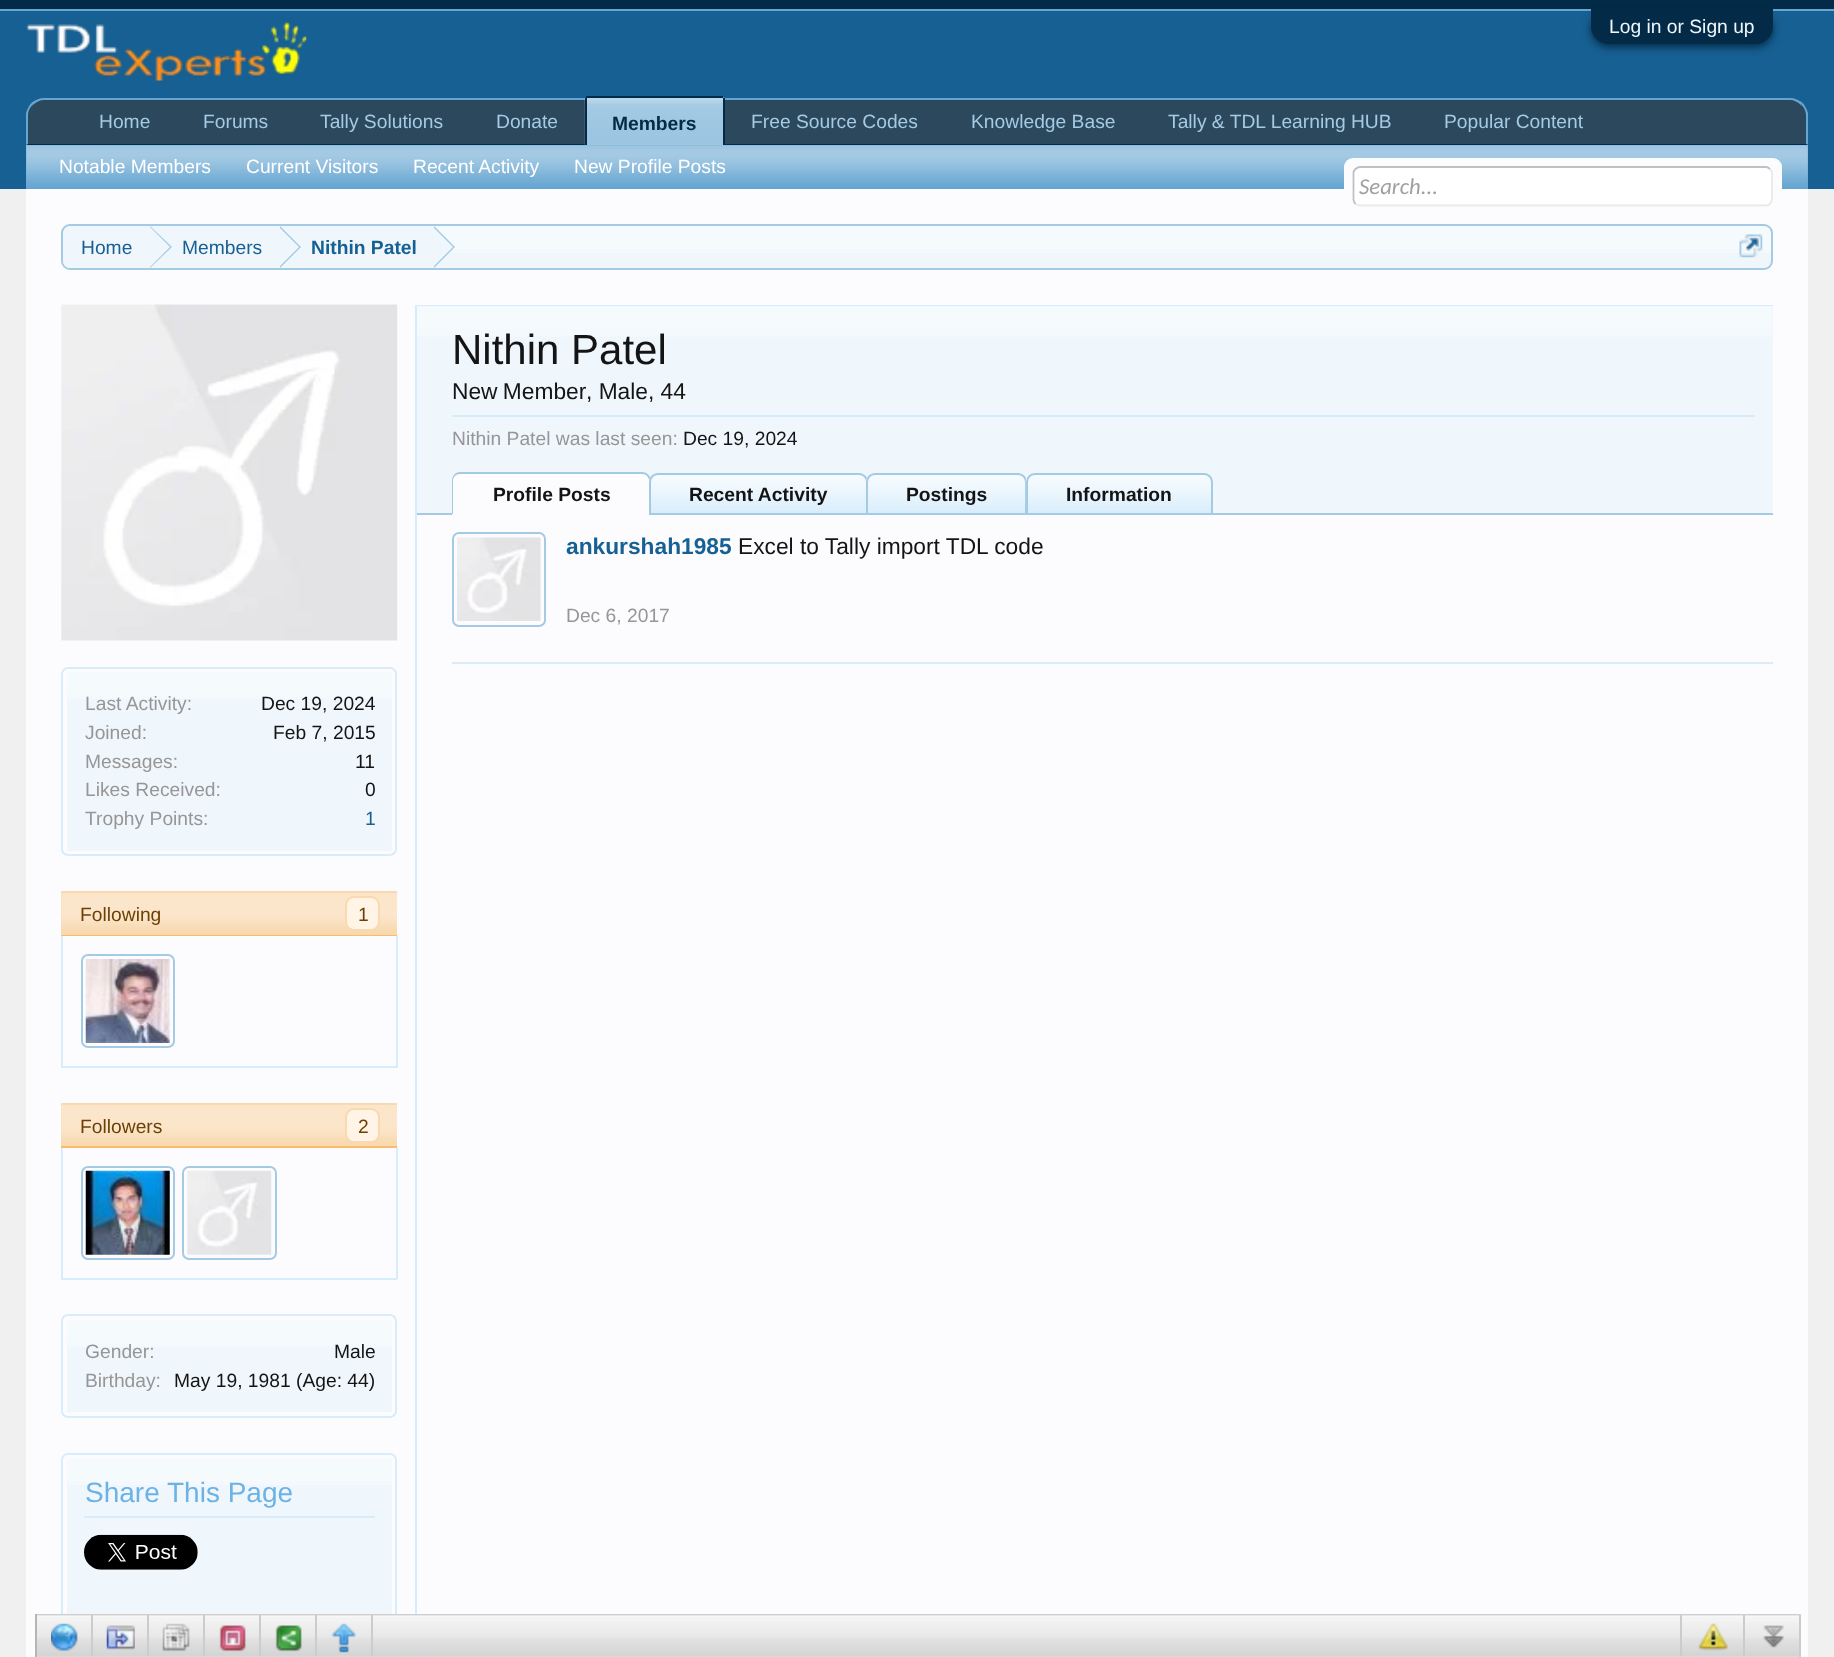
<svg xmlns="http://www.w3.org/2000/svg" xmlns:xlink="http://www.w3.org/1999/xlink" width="1834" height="1657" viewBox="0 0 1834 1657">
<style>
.cls-1{font:19.25px Liberation Sans;fill:#f0f7fc}
.cls-2{font:19.25px Liberation Sans;fill:#a5cae4}
.cls-3{font:bold 19.25px Liberation Sans;fill:#032a46}
.cls-4{font:19.25px Liberation Sans;fill:#ffffff}
.cls-5{font:italic 22.75px Carlito;fill:#a0a0a0}
.cls-6{font:19.25px Liberation Sans;fill:#176093}
.cls-7{font:bold 19.25px Liberation Sans;fill:#176093}
.cls-8{font:42px Liberation Sans;fill:#141414}
.cls-9{font:22.75px Liberation Sans;fill:#141414}
.cls-10{font:19.25px Liberation Sans;fill:#969696}
.cls-11{font:19.25px Liberation Sans;fill:#141414}
.cls-12{font:bold 19.25px Liberation Sans;fill:#141414}
.cls-13{font:bold 22.75px Liberation Sans;fill:#176093}
.cls-14{font:19.25px Liberation Sans;fill:#6d3f03}
.cls-15{font:28px Liberation Sans;fill:#6cb2e4}
</style>
<defs>
<clipPath id="clip1"><rect x="63" y="226" width="1708" height="42" rx="7"/></clipPath>
</defs>
<rect width="100%" height="100%" fill="#f0f0f0"/>
<rect fill="#032a46" x="0" y="0" width="1834" height="9"/>
<rect fill="#65a5d1" x="0" y="9" width="1834" height="2"/>
<rect fill="#176093" x="0" y="11" width="1834" height="178"/>
<rect fill="#032a46" filter="blur(4.5px)" x="1591" y="12" width="182" height="35" rx="17.5"/>
<path fill="#032a46" d="M1591 9H1773V26.5C1773 36 1765 44 1755.5 44H1608.5C1599 44 1591 36 1591 26.5Z"/>
<image xlink:href="image0.png" x="26" y="22" width="281" height="59"/>
<path fill="#2b485c" d="M44 98H1790C1800 98 1808 106 1808 116V145H26V116C26 106 34 98 44 98Z"/>
<path fill="#65a5d1" d="M44 98C39 98 35 100 31 103L33 105C36 102 40 100 44 100H1790C1794 100 1798 102 1801 105L1803 103C1799 100 1795 98 1790 98Z"/>
<path fill="#65a5d1" d="M1808 145L1806 144V116C1806 111 1804 107 1801 105L1803 103C1805 106 1807 109 1808 113Z"/>
<path fill="#032a46" d="M1808 145H26L28 144H1806Z"/>
<path fill="#65a5d1" d="M26 113C27 109 29 106 31 103L33 105C30 107 28 111 28 116V144L26 145Z"/>
<path fill="#65a5d1" d="M589 96H721C723 96 725 98 725 100V145H585V100C585 98 587 96 589 96Z"/>
<image xlink:href="image1.png" x="584" y="98" width="139" height="47"/>
<rect fill="#032a46" x="586" y="96" width="137" height="2"/>
<rect fill="#032a46" x="723" y="98" width="2" height="47"/>
<rect fill="#032a46" x="585" y="98" width="2" height="47"/>
<rect fill="#65a5d1" x="26" y="145" width="1782" height="44"/>
<image xlink:href="image2.png" x="26" y="145" width="1782" height="42"/>
<rect fill="#fcfcff" x="26" y="189" width="1782" height="1468"/>
<rect fill="#fcfcff" x="1344" y="158" width="438" height="49" rx="9"/>
<rect fill="#fcfcff" x="1344" y="166" width="438" height="1"/>
<rect fill="#ffffff" x="1353" y="166" width="420" height="41" rx="7"/>
<path fill="none" stroke="#e9e9e9" stroke-width="1.8" d="M1770 169C1771 170 1772 171.5 1772 173V199.5C1772 201 1771 202.5 1770 204C1769 205 1767.5 205.5 1766 205.5H1360C1358 205.5 1356.5 205 1355.5 204"/>
<path fill="none" stroke="#c0c0c0" stroke-width="1.8" d="M1355.5 204C1354.5 202.5 1353.5 201 1353.5 199.5V173C1353.5 171.5 1354.5 170 1355.5 169C1356.5 168 1358 167 1360 167H1766C1767.5 167 1769 168 1770 169"/>
<rect fill="#f0f7fc" x="61" y="224" width="1712" height="46" rx="9"/>
<image xlink:href="image3.png" x="62" y="226" width="1710" height="27"/>
<rect fill="none" stroke="#a5cae4" stroke-width="2" x="62" y="225" width="1710" height="44" rx="8"/>
<g clip-path="url(#clip1)">
<path fill="#f0f7fc" d="M72 226H151V270H72C67 270 63 266 63 261V235C63 230 67 226 72 226Z"/>
</g>
<rect fill="#f0f7fc" x="151" y="226" width="283" height="27"/>
<path fill="#a5cae4" d="M150 268V226L172 247Z"/>
<path fill="#f0f7fc" d="M149 268V226L170 247Z"/>
<path fill="#a5cae4" d="M280 268V226L301 247Z"/>
<path fill="#f0f7fc" d="M278 268V226L299 247Z"/>
<path fill="#a5cae4" d="M434 268V226L455 247Z"/>
<path fill="#f0f7fc" d="M432 268V226L453 247Z"/>
<image xlink:href="image4.png" x="1739" y="234" width="24" height="24"/>
<rect fill="#d7edfc" x="417" y="305" width="1356" height="1"/>
<rect fill="#f0f7fc" x="417" y="306" width="1356" height="207"/>
<image xlink:href="image5.png" x="417" y="306" width="1355" height="31"/>
<rect fill="#d7edfc" x="452" y="415" width="1303" height="2"/>
<rect fill="#a5cae4" x="417" y="513" width="1356" height="2"/>
<path fill="#fcfcff" d="M461 473H642C647 473 651 477 651 482V515H452V482C452 477 456 473 461 473Z"/>
<image xlink:href="image6.png" x="452" y="474" width="199" height="6"/>
<path fill="#a5cae4" fill-rule="evenodd" d="M460 472H642C647 472 651 476 651 481V514H452V481C452 476 455 472 460 472ZM460 474H642C646 474 649 477 649 481V514H453V481C453 477 456 474 460 474Z"/>
<path fill="#d7edfc" d="M658 473H859C864 473 868 477 868 482V515H649V482C649 477 653 473 658 473Z"/>
<image xlink:href="image7.png" x="649" y="474" width="219" height="37"/>
<path fill="none" stroke="#a5cae4" stroke-width="2" d="M658 474H859C863.5 474 867 477.5 867 482V514H650V482C650 477.5 653.5 474 658 474Z"/>
<path fill="#d7edfc" d="M875 473H1018C1023 473 1027 477 1027 482V515H866V482C866 477 870 473 875 473Z"/>
<image xlink:href="image8.png" x="866" y="474" width="161" height="37"/>
<path fill="none" stroke="#a5cae4" stroke-width="2" d="M875 474H1018C1022.5 474 1026 477.5 1026 482V514H867V482C867 477.5 870.5 474 875 474Z"/>
<path fill="#d7edfc" d="M1035 473H1204C1209 473 1213 477 1213 482V515H1026V482C1026 477 1030 473 1035 473Z"/>
<image xlink:href="image9.png" x="1025" y="474" width="188" height="37"/>
<path fill="none" stroke="#a5cae4" stroke-width="2" d="M1035 474H1204C1208.5 474 1212 477.5 1212 482V514H1027V482C1027 477.5 1030.5 474 1035 474Z"/>
<rect fill="#d7edfc" x="452" y="662" width="1321" height="2"/>
<rect fill="none" stroke="#a5cae4" stroke-width="2" x="453" y="533" width="92" height="93" rx="6"/>
<image xlink:href="image10.png" x="457" y="537" width="84" height="84"/>
<rect fill="#d7edfc" x="415" y="305" width="2" height="1352"/>
<image xlink:href="image11.png" x="61" y="304" width="337" height="337"/>
<rect fill="none" stroke="#d7edfc" stroke-width="2" x="62" y="668" width="334" height="187" rx="6"/>
<rect fill="#f0f7fc" x="67" y="672" width="325" height="179"/>
<image xlink:href="image12.png" x="67" y="672" width="325" height="27"/>
<rect fill="#f9d9b0" x="61" y="891" width="336" height="44"/>
<image xlink:href="image13.png" x="61" y="893" width="336" height="37"/>
<rect fill="#f9bc6d" x="61" y="935" width="336" height="1"/>
<rect fill="#fff4e5" stroke="#f9d9b0" stroke-width="2" x="346" y="897" width="33" height="33" rx="8"/>
<rect fill="#d7edfc" x="396" y="936" width="2" height="132"/>
<rect fill="#d7edfc" x="61" y="1066" width="336" height="2"/>
<rect fill="#d7edfc" x="61" y="936" width="2" height="132"/>
<image xlink:href="image14.png" x="85" y="959" width="85" height="84"/>
<rect fill="none" stroke="#a5cae4" stroke-width="2" x="82" y="955" width="92" height="92" rx="6"/>
<rect fill="#f9d9b0" x="61" y="1103" width="336" height="43"/>
<image xlink:href="image15.png" x="61" y="1105" width="336" height="37"/>
<rect fill="#f9bc6d" x="61" y="1146" width="336" height="2"/>
<rect fill="#fff4e5" stroke="#f9d9b0" stroke-width="2" x="346" y="1109" width="33" height="33" rx="8"/>
<rect fill="#d7edfc" x="396" y="1148" width="2" height="131"/>
<rect fill="#d7edfc" x="61" y="1278" width="336" height="2"/>
<rect fill="#d7edfc" x="61" y="1148" width="2" height="131"/>
<image xlink:href="image16.png" x="85" y="1170" width="85" height="85"/>
<rect fill="none" stroke="#a5cae4" stroke-width="2" x="82" y="1167" width="92" height="92" rx="6"/>
<image xlink:href="image17.png" x="187" y="1170" width="85" height="85"/>
<rect fill="none" stroke="#a5cae4" stroke-width="2" x="183" y="1167" width="93" height="92" rx="6"/>
<rect fill="none" stroke="#d7edfc" stroke-width="2" x="62" y="1315" width="334" height="102" rx="6"/>
<rect fill="#f0f7fc" x="67" y="1320" width="325" height="92"/>
<image xlink:href="image18.png" x="67" y="1320" width="325" height="27"/>
<rect fill="none" stroke="#d7edfc" stroke-width="2" x="62" y="1454" width="334" height="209" rx="6"/>
<rect fill="#f0f7fc" x="67" y="1458" width="325" height="199"/>
<image xlink:href="image19.png" x="67" y="1458" width="325" height="27"/>
<rect fill="#d7edfc" x="84" y="1516" width="291" height="2"/>
<image xlink:href="image20.png" x="84" y="1534" width="114" height="36"/>
<image xlink:href="image21.png" x="37" y="1614" width="1764" height="43"/>
<rect fill="#b5b5b5" x="35" y="1614" width="2" height="43"/>
<rect fill="#cccccc" x="91" y="1615" width="2" height="41"/>
<image xlink:href="image22.png" x="51" y="1623" width="27" height="29"/>
<rect fill="#cccccc" x="147" y="1615" width="2" height="41"/>
<image xlink:href="image23.png" x="106" y="1625" width="29" height="25"/>
<rect fill="#cccccc" x="203" y="1615" width="2" height="41"/>
<image xlink:href="image24.png" x="162" y="1623" width="28" height="29"/>
<rect fill="#cccccc" x="259" y="1615" width="2" height="41"/>
<image xlink:href="image25.png" x="219" y="1625" width="27" height="27"/>
<rect fill="#cccccc" x="315" y="1615" width="2" height="41"/>
<image xlink:href="image26.png" x="275" y="1625" width="27" height="27"/>
<rect fill="#cccccc" x="371" y="1615" width="2" height="41"/>
<image xlink:href="image27.png" x="331" y="1623" width="25" height="30"/>
<image xlink:href="image28.png" x="1698" y="1623" width="30" height="28"/>
<rect fill="#cccccc" x="1743" y="1615" width="2" height="41"/>
<rect fill="#cccccc" x="1680" y="1615" width="2" height="41"/>
<image xlink:href="image29.png" x="1763" y="1625" width="21" height="23"/>
<rect fill="#cccccc" x="1799" y="1615" width="2" height="42"/>
<text class="cls-1" x="1609" y="33">Log in or Sign up</text>
<text class="cls-2" x="99" y="128">Home</text>
<text class="cls-2" x="203" y="128">Forums</text>
<text class="cls-2" x="320" y="128">Tally Solutions</text>
<text class="cls-2" x="496" y="128">Donate</text>
<text class="cls-2" x="751" y="128">Free Source Codes</text>
<text class="cls-2" x="971" y="128">Knowledge Base</text>
<text class="cls-2" x="1168" y="128">Tally &amp; TDL Learning HUB</text>
<text class="cls-2" x="1444" y="128">Popular Content</text>
<text class="cls-3" x="612" y="130">Members</text>
<text class="cls-4" x="59" y="173">Notable Members</text>
<text class="cls-4" x="246" y="173">Current Visitors</text>
<text class="cls-4" x="413" y="173">Recent Activity</text>
<text class="cls-4" x="574" y="173">New Profile Posts</text>
<text class="cls-5" x="1359" y="194">Search...</text>
<text class="cls-6" x="81" y="254">Home</text>
<text class="cls-6" x="182" y="254">Members</text>
<text class="cls-7" x="311" y="254">Nithin Patel</text>
<text class="cls-8" x="452" y="364">Nithin Patel</text>
<text class="cls-9" x="452" y="399" word-spacing="-1">New Member</text>
<text class="cls-9" x="586" y="399">, Male, 44</text>
<text class="cls-10" x="452" y="445">Nithin Patel was last seen:</text>
<text class="cls-11" x="683" y="445">Dec 19, 2024</text>
<text class="cls-12" x="493" y="501">Profile Posts</text>
<text class="cls-12" x="689" y="501">Recent Activity</text>
<text class="cls-12" x="906" y="501">Postings</text>
<text class="cls-12" x="1066" y="501">Information</text>
<text class="cls-13" x="566" y="554">ankurshah1985</text>
<text class="cls-9" x="738" y="554">Excel to Tally import TDL code</text>
<text class="cls-10" x="566" y="622">Dec 6, 2017</text>
<text class="cls-10" x="85" y="710">Last Activity:</text>
<text class="cls-11" x="261" y="710">Dec 19, 2024</text>
<text class="cls-10" x="85" y="739">Joined:</text>
<text class="cls-11" x="273" y="739">Feb 7, 2015</text>
<text class="cls-10" x="85" y="768">Messages:</text>
<text class="cls-11" x="355" y="768">11</text>
<text class="cls-10" x="85" y="796">Likes Received:</text>
<text class="cls-11" x="365" y="796">0</text>
<text class="cls-10" x="85" y="825">Trophy Points:</text>
<text class="cls-6" x="365" y="825">1</text>
<text class="cls-14" x="80" y="921">Following</text>
<text class="cls-14" x="358" y="921">1</text>
<text class="cls-14" x="80" y="1133">Followers</text>
<text class="cls-14" x="358" y="1133">2</text>
<text class="cls-10" x="85" y="1358">Gender:</text>
<text class="cls-11" x="334" y="1358">Male</text>
<text class="cls-10" x="85" y="1387">Birthday:</text>
<text class="cls-11" x="174" y="1387">May 19, 1981 (Age: 44)</text>
<text class="cls-15" x="85" y="1502">Share This Page</text>
</svg>
